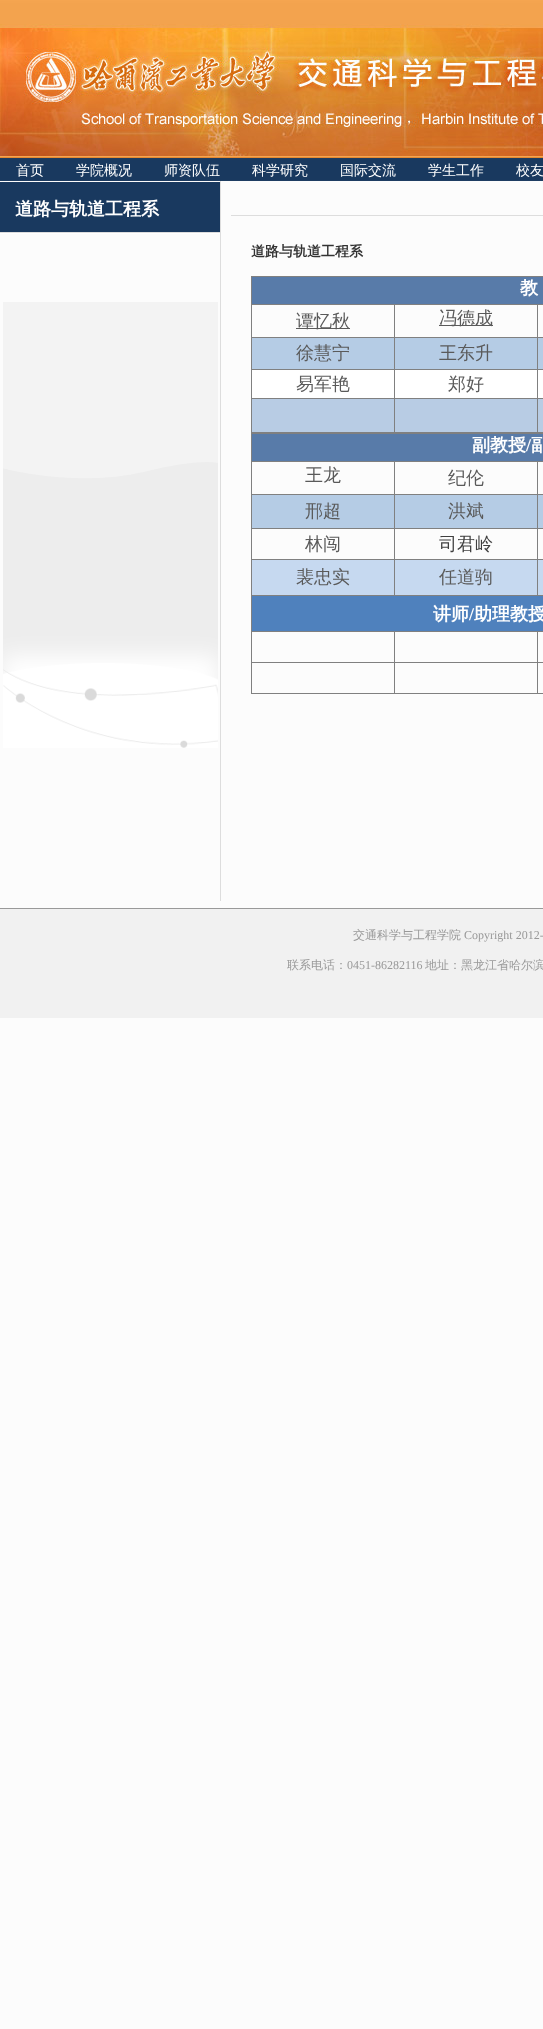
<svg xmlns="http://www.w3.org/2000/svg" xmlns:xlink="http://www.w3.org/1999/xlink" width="543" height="2029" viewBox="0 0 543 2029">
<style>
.cls-1{font:500 14px WenQuanYi Zen Hei;fill:#ffffff}
.cls-2{font:bold 18px WenQuanYi Zen Hei;fill:#ffffff}
.cls-3{font:bold 14px WenQuanYi Zen Hei;fill:#333333}
.cls-4{font:500 18px WenQuanYi Zen Hei;fill:#5a5a5a}
.cls-5{font:bold 18px Liberation Serif;fill:#ffffff}
.cls-6{font:500 18px WenQuanYi Zen Hei;fill:#3f3f3f}
.cls-7{font:500 12px WenQuanYi Zen Hei;fill:#999999}
.cls-8{font:12px Liberation Serif;fill:#999999}
</style>
<rect width="100%" height="100%" fill="#fcfcfc"/>
<image xlink:href="image0.png" x="0" y="157" width="543" height="24"/>
<image xlink:href="image1.png" x="0" y="0" width="543" height="157"/>
<image xlink:href="image2.png" x="3" y="302" width="215" height="446"/>
<rect fill="#dddddd" x="220" y="181" width="1" height="720"/>
<rect fill="#19395f" x="0" y="182" width="220" height="50"/>
<rect fill="#dddddd" x="0" y="232" width="220" height="1"/>
<rect fill="#ffffff" x="0" y="233" width="220" height="1"/>
<rect fill="#dddddd" x="231" y="215" width="312" height="1"/>
<rect fill="#808080" x="251" y="276" width="292" height="1"/>
<rect fill="#b8cce4" x="538" y="399" width="5" height="34"/>
<rect fill="#808080" x="251" y="432" width="292" height="2"/>
<rect fill="#808080" x="251" y="276" width="1" height="157"/>
<rect fill="#587ba9" x="252" y="277" width="291" height="27"/>
<rect fill="#808080" x="537" y="304" width="6" height="1"/>
<rect fill="#808080" x="537" y="337" width="6" height="1"/>
<rect fill="#b5cce5" x="538" y="338" width="5" height="32"/>
<rect fill="#808080" x="537" y="369" width="6" height="1"/>
<rect fill="#ffffff" x="538" y="370" width="5" height="29"/>
<rect fill="#808080" x="537" y="398" width="6" height="1"/>
<rect fill="#808080" x="537" y="398" width="1" height="35"/>
<rect fill="#808080" x="394" y="398" width="144" height="1"/>
<rect fill="#808080" x="537" y="369" width="1" height="30"/>
<rect fill="#808080" x="394" y="369" width="144" height="1"/>
<rect fill="#808080" x="537" y="337" width="1" height="33"/>
<rect fill="#808080" x="394" y="337" width="144" height="1"/>
<rect fill="#808080" x="537" y="304" width="1" height="34"/>
<rect fill="#808080" x="394" y="304" width="144" height="1"/>
<rect fill="#808080" x="394" y="398" width="1" height="35"/>
<rect fill="#808080" x="251" y="398" width="144" height="1"/>
<rect fill="#808080" x="394" y="369" width="1" height="30"/>
<rect fill="#808080" x="251" y="369" width="144" height="1"/>
<rect fill="#808080" x="394" y="337" width="1" height="33"/>
<rect fill="#808080" x="251" y="337" width="144" height="1"/>
<rect fill="#808080" x="394" y="304" width="1" height="34"/>
<rect fill="#808080" x="251" y="304" width="144" height="1"/>
<rect fill="#5a5a5a" x="296" y="328" width="54" height="1"/>
<rect fill="#5a5a5a" x="439" y="325" width="54" height="1"/>
<rect fill="#b5cce5" x="252" y="338" width="142" height="31"/>
<rect fill="#b5cce5" x="395" y="338" width="142" height="31"/>
<rect fill="#ffffff" x="252" y="370" width="142" height="28"/>
<rect fill="#ffffff" x="395" y="370" width="142" height="28"/>
<rect fill="#b8cce4" x="252" y="399" width="142" height="33"/>
<rect fill="#b8cce4" x="395" y="399" width="142" height="33"/>
<rect fill="#808080" x="251" y="693" width="292" height="1"/>
<rect fill="#808080" x="251" y="433" width="1" height="261"/>
<rect fill="#587ba9" x="252" y="434" width="291" height="27"/>
<rect fill="#808080" x="537" y="461" width="6" height="1"/>
<rect fill="#808080" x="537" y="494" width="6" height="1"/>
<rect fill="#b5cce5" x="538" y="495" width="5" height="34"/>
<rect fill="#808080" x="537" y="528" width="6" height="1"/>
<rect fill="#808080" x="537" y="559" width="6" height="1"/>
<rect fill="#c6d9f0" x="538" y="560" width="5" height="36"/>
<rect fill="#808080" x="251" y="595" width="292" height="1"/>
<rect fill="#808080" x="537" y="559" width="1" height="37"/>
<rect fill="#808080" x="394" y="559" width="144" height="1"/>
<rect fill="#808080" x="537" y="528" width="1" height="32"/>
<rect fill="#808080" x="394" y="528" width="144" height="1"/>
<rect fill="#808080" x="537" y="494" width="1" height="35"/>
<rect fill="#808080" x="394" y="494" width="144" height="1"/>
<rect fill="#808080" x="537" y="461" width="1" height="34"/>
<rect fill="#808080" x="394" y="461" width="144" height="1"/>
<rect fill="#808080" x="394" y="559" width="1" height="37"/>
<rect fill="#808080" x="251" y="559" width="144" height="1"/>
<rect fill="#808080" x="394" y="528" width="1" height="32"/>
<rect fill="#808080" x="251" y="528" width="144" height="1"/>
<rect fill="#808080" x="394" y="494" width="1" height="35"/>
<rect fill="#808080" x="251" y="494" width="144" height="1"/>
<rect fill="#808080" x="394" y="461" width="1" height="34"/>
<rect fill="#808080" x="251" y="461" width="144" height="1"/>
<rect fill="#b5cce5" x="252" y="495" width="142" height="33"/>
<rect fill="#b5cce5" x="395" y="495" width="142" height="33"/>
<rect fill="#c6d9f0" x="252" y="560" width="142" height="35"/>
<rect fill="#c6d9f0" x="395" y="560" width="142" height="35"/>
<rect fill="#4f81bd" x="252" y="596" width="291" height="35"/>
<rect fill="#808080" x="537" y="631" width="6" height="1"/>
<rect fill="#808080" x="537" y="662" width="6" height="1"/>
<rect fill="#808080" x="537" y="662" width="1" height="32"/>
<rect fill="#808080" x="394" y="662" width="144" height="1"/>
<rect fill="#808080" x="537" y="631" width="1" height="32"/>
<rect fill="#808080" x="394" y="631" width="144" height="1"/>
<rect fill="#808080" x="394" y="662" width="1" height="32"/>
<rect fill="#808080" x="251" y="662" width="144" height="1"/>
<rect fill="#808080" x="394" y="631" width="1" height="32"/>
<rect fill="#808080" x="251" y="631" width="144" height="1"/>
<rect fill="#f1f1f1" x="0" y="909" width="543" height="109"/>
<rect fill="#999999" x="0" y="908" width="543" height="1"/>
<text class="cls-1" x="16" y="175">首页</text>
<text class="cls-1" x="76" y="175">学院概况</text>
<text class="cls-1" x="164" y="175">师资队伍</text>
<text class="cls-1" x="252" y="175">科学研究</text>
<text class="cls-1" x="340" y="175">国际交流</text>
<text class="cls-1" x="428" y="175">学生工作</text>
<text class="cls-1" x="516" y="175">校友</text>
<text class="cls-2" x="15" y="215">道路与轨道工程系</text>
<text class="cls-3" x="251" y="256">道路与轨道工程系</text>
<text class="cls-2" x="520" y="294">教</text>
<text class="cls-4" x="296" y="327">谭忆秋</text>
<text class="cls-4" x="439" y="324">冯德成</text>
<text class="cls-4" x="296" y="359">徐慧宁</text>
<text class="cls-4" x="439" y="359">王东升</text>
<text class="cls-4" x="296" y="390">易军艳</text>
<text class="cls-4" x="448" y="390">郑好</text>
<text class="cls-2" x="472" y="451">副教授</text>
<text class="cls-5" x="526" y="451">/</text>
<text class="cls-2" x="531" y="451">副</text>
<text class="cls-4" x="305" y="481">王龙</text>
<text class="cls-4" x="448" y="484">纪伦</text>
<text class="cls-4" x="305" y="517">邢超</text>
<text class="cls-4" x="448" y="517">洪斌</text>
<text class="cls-4" x="305" y="550">林闯</text>
<text class="cls-6" x="439" y="550">司君岭</text>
<text class="cls-4" x="296" y="583">裴忠实</text>
<text class="cls-4" x="439" y="583">任道驹</text>
<text class="cls-2" x="433" y="620">讲师</text>
<text class="cls-5" x="469" y="620">/</text>
<text class="cls-2" x="474" y="620">助理教授</text>
<text class="cls-7" x="353" y="939">交通科学与工程学院</text>
<text class="cls-8" x="464" y="939">Copyright 2012-</text>
<text class="cls-7" x="287" y="969">联系电话：</text>
<text class="cls-8" x="347" y="969">0451-86282116</text>
<text class="cls-7" x="425" y="969">地址：黑龙江省哈尔滨</text>
</svg>
